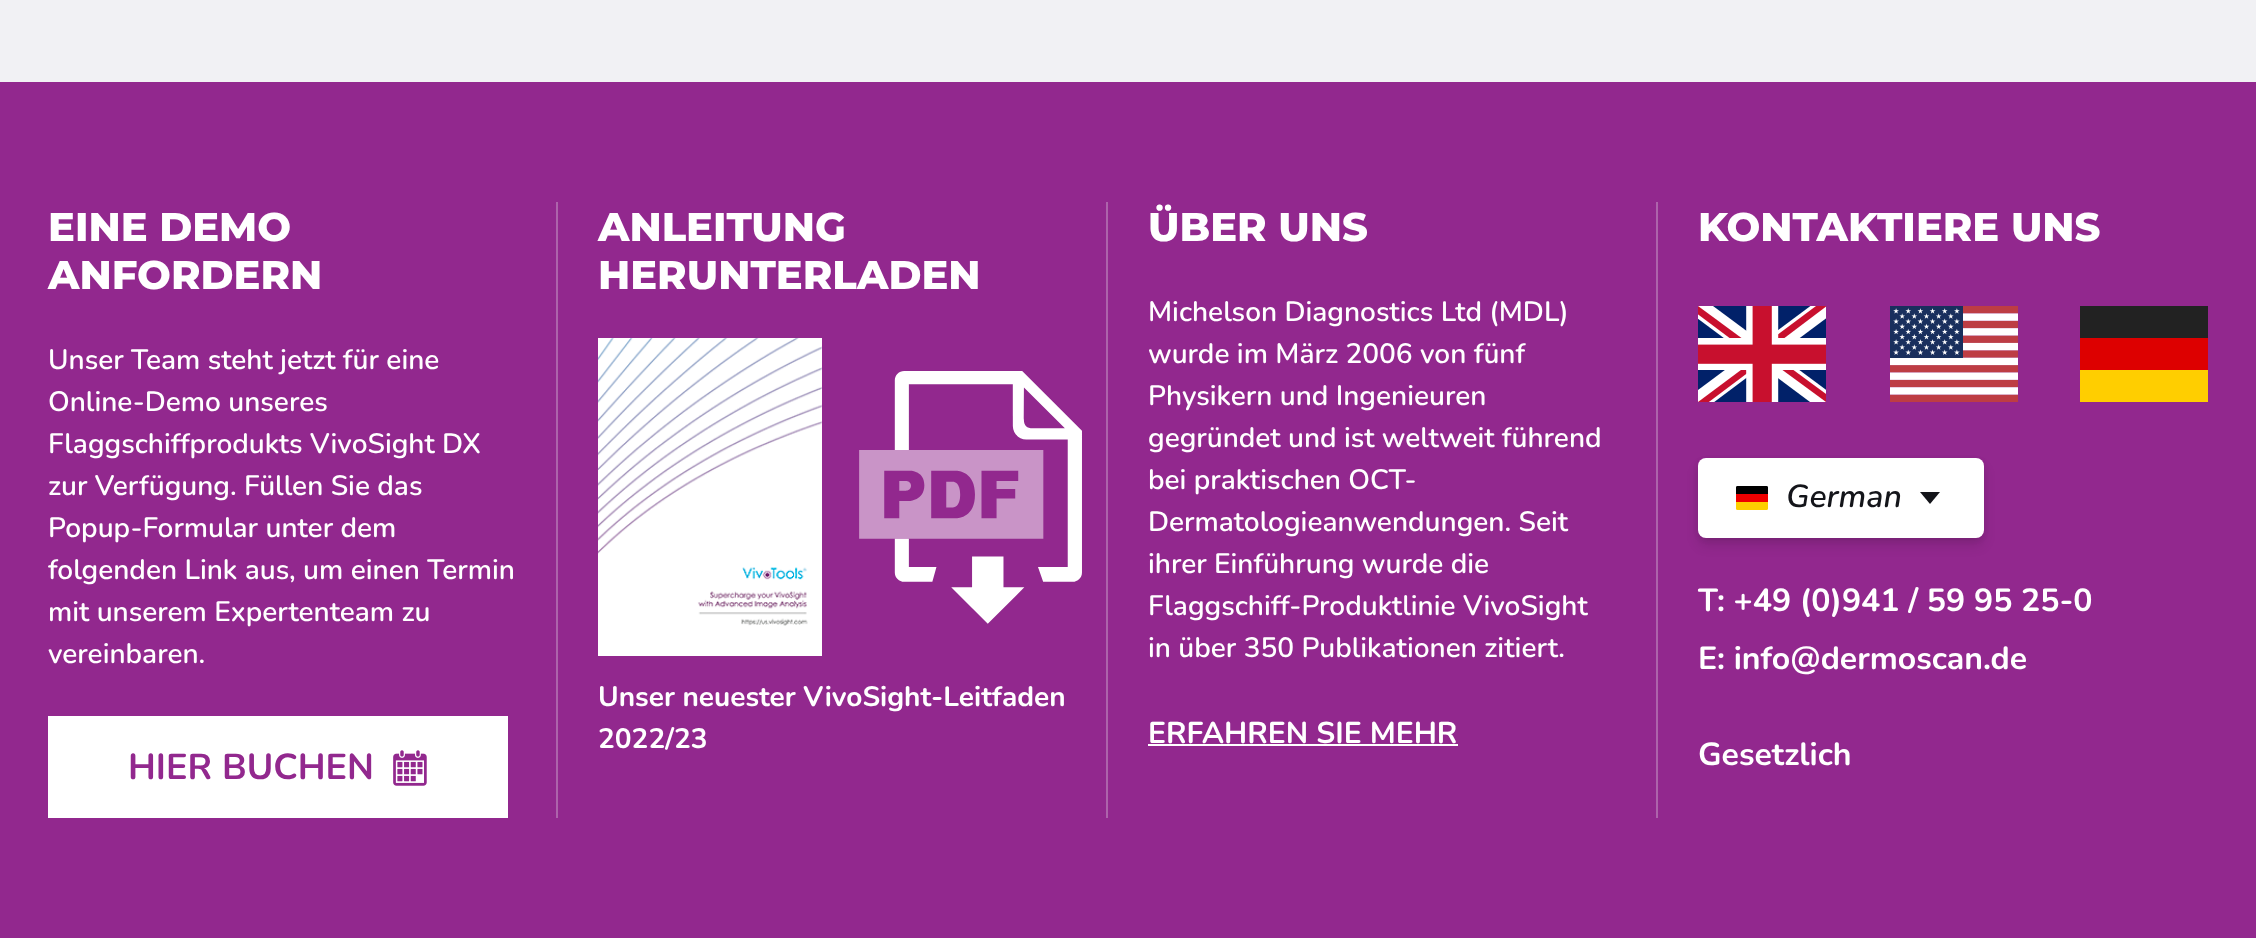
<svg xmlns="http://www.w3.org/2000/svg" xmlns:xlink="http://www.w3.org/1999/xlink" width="2256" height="938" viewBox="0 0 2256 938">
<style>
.cls-1{font:800 40px Montserrat;fill:#ffffff}
.cls-2{font:600 28px Nunito;fill:#ffffff}
.cls-3{font:bold 36px Nunito;fill:#92288e}
.cls-4{font:bold 28px Nunito;fill:#ffffff}
.cls-5{font:bold 30px Nunito;fill:#ffffff}
.cls-6{font:italic 600 32px Nunito;fill:#14151a}
.cls-7{font:bold 32px Nunito;fill:#ffffff}
</style>
<rect width="100%" height="100%" fill="#f1f1f4"/>
<rect fill="#92288e" x="0" y="82" width="2256" height="856"/>
<rect fill="#ad63ab" x="556" y="202" width="2" height="616"/>
<rect fill="#ffffff" x="48" y="716" width="460" height="102"/>
<image xlink:href="image0.png" x="393" y="750" width="34" height="36"/>
<rect fill="#ad63ab" x="1106" y="202" width="2" height="616"/>
<image xlink:href="image1.png" x="598" y="338" width="224" height="318"/>
<image xlink:href="image2.png" x="859" y="371" width="223" height="253"/>
<rect fill="#ad63ab" x="1656" y="202" width="2" height="616"/>
<rect fill="#ffffff" x="1148" y="744" width="310" height="2"/>
<image xlink:href="image3.png" x="1698" y="306" width="128" height="96"/>
<image xlink:href="image4.png" x="1890" y="306" width="128" height="96"/>
<rect fill="#222222" x="2080" y="306" width="128" height="32"/>
<rect fill="#dd0000" x="2080" y="338" width="128" height="32"/>
<rect fill="#ffce00" x="2080" y="370" width="128" height="32"/>
<rect fill="#000000" fill-opacity="0.1" filter="blur(6px)" x="1698" y="466" width="286" height="80" rx="8"/>
<rect fill="#14151a" fill-opacity="0.2" filter="blur(3px)" x="1700" y="462" width="282" height="76" rx="6"/>
<rect fill="#ffffff" x="1698" y="458" width="286" height="80" rx="8"/>
<image xlink:href="image5.png" x="1736" y="486" width="32" height="24"/>
<path fill="#14151a" d="M1920 492L1930 504L1940 492Z"/>
<text class="cls-1"><tspan x="48" y="241">EINE DEMO</tspan><tspan x="48" y="289">ANFORDERN</tspan></text>
<text class="cls-2"><tspan x="48" y="369">Unser Team steht jetzt für eine</tspan><tspan x="48" y="411">Online-Demo unseres</tspan><tspan x="48" y="453">Flaggschiffprodukts VivoSight DX</tspan><tspan x="48" y="495">zur Verfügung. Füllen Sie das</tspan><tspan x="48" y="537">Popup-Formular unter dem</tspan><tspan x="48" y="579">folgenden Link aus, um einen Termin</tspan><tspan x="48" y="621">mit unserem Expertenteam zu</tspan><tspan x="48" y="663">vereinbaren.</tspan></text>
<text class="cls-3" x="128" y="779">HIER BUCHEN</text>
<text class="cls-1"><tspan x="598" y="241">ANLEITUNG</tspan><tspan x="598" y="289">HERUNTERLADEN</tspan></text>
<text class="cls-4"><tspan x="598" y="706">Unser neuester VivoSight-Leitfaden</tspan><tspan x="598" y="748">2022/23</tspan></text>
<text class="cls-1" x="1148" y="241">ÜBER UNS</text>
<text class="cls-2"><tspan x="1148" y="321">Michelson Diagnostics Ltd (MDL)</tspan><tspan x="1148" y="363">wurde im März 2006 von fünf</tspan><tspan x="1148" y="405">Physikern und Ingenieuren</tspan><tspan x="1148" y="447">gegründet und ist weltweit führend</tspan><tspan x="1148" y="489">bei praktischen OCT-</tspan><tspan x="1148" y="531">Dermatologieanwendungen. Seit</tspan><tspan x="1148" y="573">ihrer Einführung wurde die</tspan><tspan x="1148" y="615">Flaggschiff-Produktlinie VivoSight</tspan><tspan x="1148" y="657">in über 350 Publikationen zitiert.</tspan></text>
<text class="cls-5" x="1148" y="743">ERFAHREN SIE MEHR</text>
<text class="cls-1" x="1698" y="241">KONTAKTIERE UNS</text>
<text class="cls-6" x="1786" y="507">German</text>
<text class="cls-7"><tspan x="1698" y="611">T: +49 (0)941 / 59 95 25-0</tspan><tspan x="1698" y="669">E: info@dermoscan.de</tspan></text>
<text class="cls-7" x="1698" y="765">Gesetzlich</text>
</svg>
